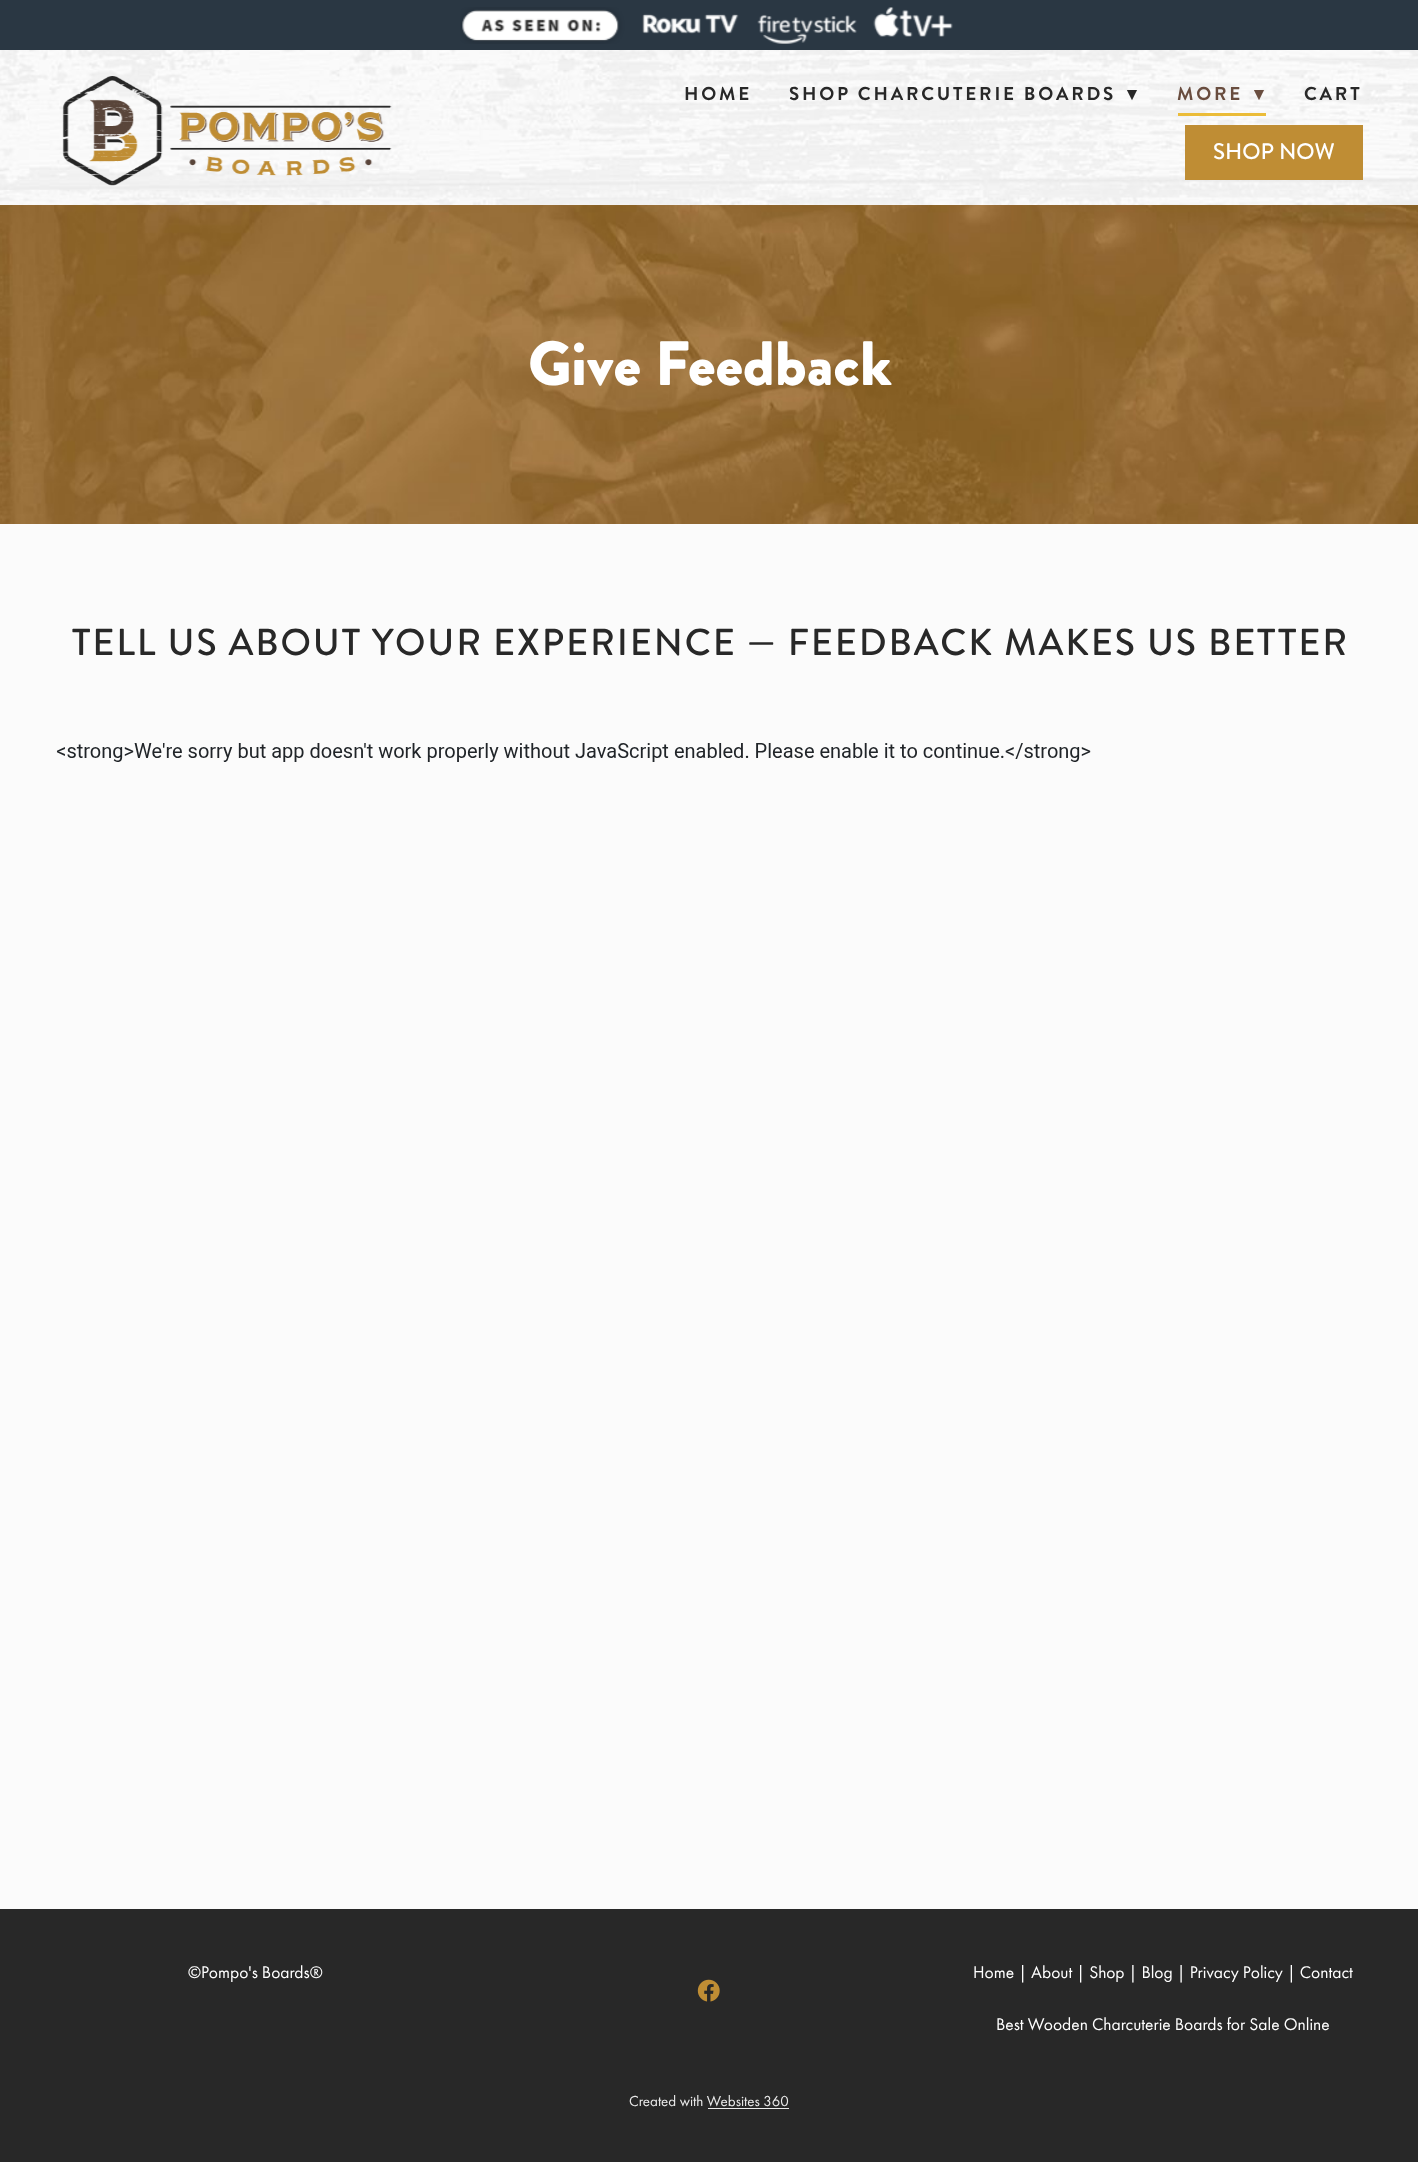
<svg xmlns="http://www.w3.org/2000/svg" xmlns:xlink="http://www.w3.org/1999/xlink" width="1418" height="2162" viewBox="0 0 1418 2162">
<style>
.cls-1{font:bold 18.75px Brandon Grotesque;letter-spacing:2.8px;fill:#282828}
.cls-2{font:bold 18.75px DejaVu Sans;letter-spacing:2.8px;fill:#282828}
.cls-3{font:bold 18.75px Brandon Grotesque;letter-spacing:2.8px;fill:#694d3f}
.cls-4{font:bold 18.75px DejaVu Sans;letter-spacing:2.8px;fill:#694d3f}
.cls-5{font:500 22.5px Brandon Grotesque;fill:#ffffff}
.cls-6{font:900 62.5px Brandon Grotesque;fill:#ffffff}
.cls-7{font:500 37.5px Brandon Grotesque;letter-spacing:1.88px;fill:#282828}
.cls-8{font:17.5px Futura PT;fill:#ffffff}
.cls-9{font:15px Futura PT;fill:#ebebeb}
</style>
<rect width="100%" height="100%" fill="#fbfbfb"/>
<image xlink:href="image0.png" x="0" y="50" width="1418" height="155"/>
<rect fill="#2a3743" x="0" y="0" width="1418" height="50"/>
<image xlink:href="image1.png" x="460" y="7" width="493" height="37"/>
<image xlink:href="image2.png" x="62" y="76" width="330" height="110"/>
<rect fill="#ebbc38" x="1178" y="113" width="88" height="3"/>
<rect fill="#bf8d34" x="1185" y="125" width="178" height="55"/>
<image xlink:href="image3.png" x="0" y="205" width="1418" height="319"/>
<image xlink:href="image4.png" x="56" y="743" width="1035" height="19"/>
<rect fill="#282828" x="0" y="1909" width="1418" height="253"/>
<image xlink:href="image5.png" x="697" y="1979" width="23" height="23"/>
<rect fill="#ebebeb" x="708" y="2108" width="81" height="1"/>
<text class="cls-1" x="684" y="100">HOME</text>
<text class="cls-1" x="789" y="100">SHOP CHARCUTERIE BOARDS</text>
<text class="cls-2" x="1127" y="100">▾</text>
<text class="cls-3" x="1177" y="100">MORE</text>
<text class="cls-4" x="1254" y="100">▾</text>
<text class="cls-1" x="1304" y="100">CART</text>
<text class="cls-5" x="1213" y="159">SHOP NOW</text>
<text class="cls-6" x="528" y="385">Give Feedback</text>
<text class="cls-7" x="72" y="655">TELL US ABOUT YOUR EXPERIENCE — FEEDBACK MAKES US BETTER</text>
<text class="cls-8" x="188" y="1978">©Pompo's Boards®</text>
<text class="cls-8" x="973" y="1978">Home | About | Shop | Blog | Privacy Policy | Contact</text>
<text class="cls-8" x="996" y="2030">Best Wooden Charcuterie Boards for Sale Online</text>
<text class="cls-9" x="629" y="2106">Created with Websites 360</text>
</svg>
